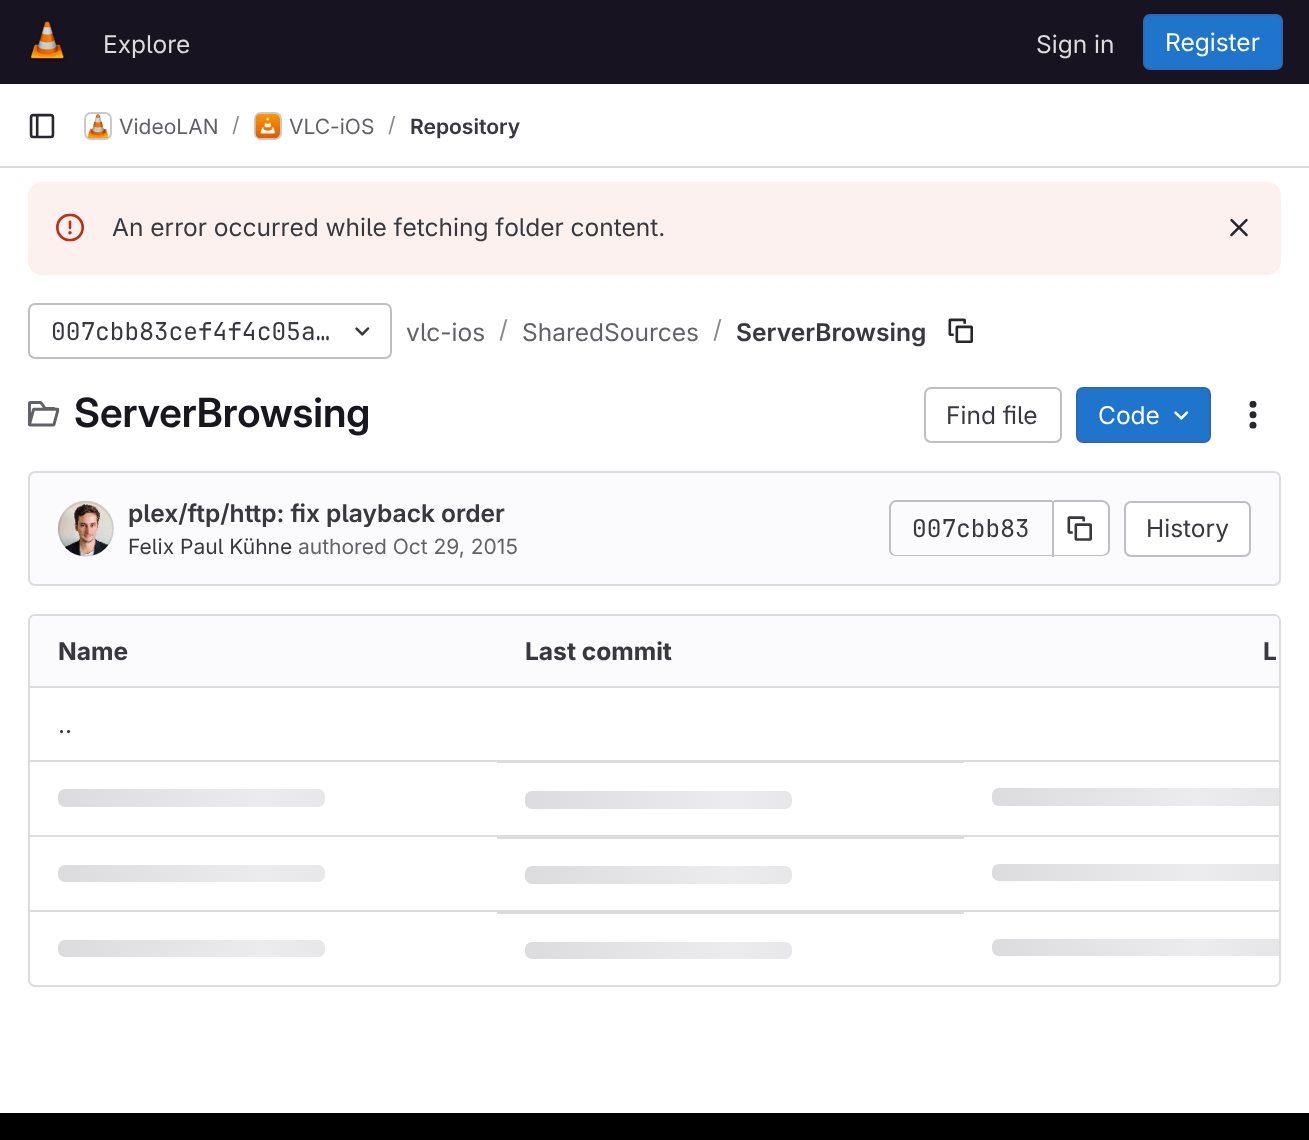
<svg xmlns="http://www.w3.org/2000/svg" xmlns:xlink="http://www.w3.org/1999/xlink" width="1309" height="1140" viewBox="0 0 1309 1140">
<style>
.cls-1{font:24.5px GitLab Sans;fill:#dcdcde}
.cls-2{font:24.5px GitLab Sans;fill:#ffffff}
.cls-3{font:21px GitLab Sans;fill:#626168}
.cls-4{font:21px GitLab Sans;fill:#89888d}
.cls-5{font:600 21px GitLab Sans;fill:#3a383f}
.cls-6{font:24.5px GitLab Sans;fill:#3a383f}
.cls-7{font:24.5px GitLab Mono;fill:#3a383f}
.cls-8{font:24.5px GitLab Sans;fill:#626168}
.cls-9{font:24.5px GitLab Sans;fill:#89888d}
.cls-10{font:600 24.5px GitLab Sans;fill:#3a383f}
.cls-11{font:600 40.25px 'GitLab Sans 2';fill:#18171d}
.cls-12{font:21px GitLab Sans;fill:#3a383f}
.cls-13{font:bold 24.5px GitLab Sans;fill:#3a383f}
</style>
<defs>
<linearGradient id="g1" gradientUnits="userSpaceOnUse" x1="58" y1="789" x2="469" y2="789"><stop offset="0" stop-color="#dcdcde"/><stop offset="0.5" stop-color="#ececef"/><stop offset="1" stop-color="#dcdcde"/></linearGradient>
<linearGradient id="g2" gradientUnits="userSpaceOnUse" x1="525" y1="791" x2="936" y2="791"><stop offset="0" stop-color="#dcdcde"/><stop offset="0.5" stop-color="#ececef"/><stop offset="1" stop-color="#dcdcde"/></linearGradient>
<linearGradient id="g3" gradientUnits="userSpaceOnUse" x1="992" y1="788" x2="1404" y2="788"><stop offset="0" stop-color="#dcdcde"/><stop offset="0.5" stop-color="#ececef"/><stop offset="1" stop-color="#dcdcde"/></linearGradient>
<linearGradient id="g4" gradientUnits="userSpaceOnUse" x1="58" y1="865" x2="469" y2="865"><stop offset="0" stop-color="#dcdcde"/><stop offset="0.5" stop-color="#ececef"/><stop offset="1" stop-color="#dcdcde"/></linearGradient>
<linearGradient id="g5" gradientUnits="userSpaceOnUse" x1="525" y1="866" x2="936" y2="866"><stop offset="0" stop-color="#dcdcde"/><stop offset="0.5" stop-color="#ececef"/><stop offset="1" stop-color="#dcdcde"/></linearGradient>
<linearGradient id="g6" gradientUnits="userSpaceOnUse" x1="992" y1="864" x2="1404" y2="864"><stop offset="0" stop-color="#dcdcde"/><stop offset="0.5" stop-color="#ececef"/><stop offset="1" stop-color="#dcdcde"/></linearGradient>
<linearGradient id="g7" gradientUnits="userSpaceOnUse" x1="58" y1="940" x2="469" y2="940"><stop offset="0" stop-color="#dcdcde"/><stop offset="0.5" stop-color="#ececef"/><stop offset="1" stop-color="#dcdcde"/></linearGradient>
<linearGradient id="g8" gradientUnits="userSpaceOnUse" x1="525" y1="942" x2="936" y2="942"><stop offset="0" stop-color="#dcdcde"/><stop offset="0.5" stop-color="#ececef"/><stop offset="1" stop-color="#dcdcde"/></linearGradient>
<linearGradient id="g9" gradientUnits="userSpaceOnUse" x1="992" y1="939" x2="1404" y2="939"><stop offset="0" stop-color="#dcdcde"/><stop offset="0.5" stop-color="#ececef"/><stop offset="1" stop-color="#dcdcde"/></linearGradient>
</defs>
<rect width="100%" height="100%" fill="#ffffff"/>
<rect fill="#171321" x="0" y="0" width="1309" height="84"/>
<image xlink:href="image0.png" x="30" y="21" width="35" height="40"/>
<rect fill="#1f75cb" stroke="#2f68b4" stroke-width="2" x="1144" y="15" width="138" height="54" rx="6"/>
<rect fill="#dcdcde" x="0" y="166" width="1309" height="2"/>
<image xlink:href="image1.png" x="29" y="113" width="26" height="26"/>
<rect fill="none" stroke="#dcdcde" stroke-width="2" x="85" y="113" width="26" height="26" rx="6"/>
<image xlink:href="image2.png" x="87" y="114" width="22" height="25"/>
<rect fill="none" stroke="#050506" stroke-opacity="0.08" stroke-width="2" x="85" y="113" width="26" height="26" rx="6"/>
<rect fill="none" stroke="#dcdcde" stroke-width="2" x="255" y="113" width="26" height="26" rx="6"/>
<image xlink:href="image3.png" x="255" y="113" width="25" height="26"/>
<rect fill="none" stroke="#050506" stroke-opacity="0.08" stroke-width="2" x="255" y="113" width="26" height="26" rx="6"/>
<rect fill="#fcf1ef" x="28" y="182" width="1253" height="93" rx="14"/>
<image xlink:href="image4.png" x="56" y="213" width="28" height="29"/>
<image xlink:href="image5.png" x="1230" y="218" width="18" height="19"/>
<rect fill="none" stroke="#bfbfc3" stroke-width="2" x="29" y="304" width="362" height="54" rx="6"/>
<image xlink:href="image6.png" x="355" y="327" width="15" height="9"/>
<image xlink:href="image7.png" x="948" y="318" width="25" height="25"/>
<image xlink:href="image8.png" x="28" y="401" width="32" height="26"/>
<rect fill="none" stroke="#bfbfc3" stroke-width="2" x="925" y="388" width="136" height="54" rx="6"/>
<rect fill="#1f75cb" stroke="#2f68b4" stroke-width="2" x="1077" y="388" width="133" height="54" rx="6"/>
<image xlink:href="image9.png" x="1174" y="411" width="15" height="9"/>
<image xlink:href="image10.png" x="1249" y="400" width="8" height="29"/>
<rect fill="#fbfafd" stroke="#dcdcde" stroke-width="2" x="29" y="472" width="1251" height="113" rx="6"/>
<image xlink:href="image11.png" x="58" y="500" width="56" height="57"/>
<circle fill="none" stroke="#050506" stroke-opacity="0.08" stroke-width="2" cx="86" cy="529" r="27"/>
<path fill="#bfbfc3" fill-rule="evenodd" d="M896 500H1052V556H896C892 556 889 553 889 550V508C889 504 892 500 896 500ZM896 502H1052V555H896C893 555 891 552 891 550V508C891 505 893 502 896 502Z"/>
<path fill="#ffffff" d="M1054 502H1103C1106 502 1108 504 1108 507V550C1108 553 1106 555 1103 555H1054Z"/>
<path fill="#bfbfc3" fill-rule="evenodd" d="M1054 500H1102C1106 500 1110 504 1110 508V550C1110 553 1106 556 1102 556H1054ZM1054 502H1102C1105 502 1108 505 1108 508V550C1108 552 1105 555 1102 555H1054Z"/>
<rect fill="#bfbfc3" x="1052" y="501" width="2" height="56"/>
<image xlink:href="image12.png" x="1067" y="516" width="25" height="25"/>
<rect fill="#ffffff" stroke="#bfbfc3" stroke-width="2" x="1125" y="502" width="125" height="54" rx="6"/>
<rect fill="none" stroke="#dcdcde" stroke-width="2" x="29" y="615" width="1251" height="371" rx="6"/>
<path fill="#fbfafd" d="M35 616H497V688H30V621C30 618 32 616 35 616Z"/>
<rect fill="#fbfafd" x="497" y="616" width="467" height="70"/>
<path fill="#fbfafd" d="M964 616H1274C1277 616 1279 618 1279 621V688H964Z"/>
<rect fill="#dcdcde" x="30" y="760" width="1249" height="2"/>
<rect fill="#dcdcde" x="30" y="686" width="1249" height="2"/>
<rect fill="#dcdcde" x="30" y="835" width="1249" height="2"/>
<rect fill="url(#g1)" x="58" y="789" width="267" height="18" rx="7"/>
<rect fill="#dcdcde" x="497" y="762" width="467" height="1"/>
<rect fill="url(#g2)" x="525" y="791" width="267" height="18" rx="7"/>
<path fill="url(#g3)" d="M999 788H1279V806H999C995 806 992 803 992 799V795C992 791 995 788 999 788Z"/>
<rect fill="#dcdcde" x="30" y="910" width="1249" height="2"/>
<rect fill="url(#g4)" x="58" y="865" width="267" height="17" rx="7"/>
<rect fill="#dcdcde" x="497" y="837" width="467" height="2"/>
<rect fill="url(#g5)" x="525" y="866" width="267" height="18" rx="7"/>
<path fill="url(#g6)" d="M999 864H1279V881H999C995 881 992 878 992 874V871C992 867 995 864 999 864Z"/>
<rect fill="url(#g7)" x="58" y="940" width="267" height="17" rx="7"/>
<rect fill="#dcdcde" x="497" y="912" width="467" height="2"/>
<rect fill="url(#g8)" x="525" y="942" width="267" height="17" rx="7"/>
<path fill="url(#g9)" d="M999 939H1279V956H999C995 956 992 953 992 949V946C992 942 995 939 999 939Z"/>
<rect fill="#000000" x="0" y="1113" width="1309" height="27"/>
<text class="cls-1" x="103" y="53">Explore</text>
<text class="cls-1" x="1036" y="53">Sign in</text>
<text class="cls-2" x="1165" y="51">Register</text>
<text class="cls-3" x="119" y="134">VideoLAN</text>
<text class="cls-4" x="232" y="132">/</text>
<text class="cls-3" x="289" y="134">VLC-iOS</text>
<text class="cls-4" x="388" y="132">/</text>
<text class="cls-5" x="410" y="134">Repository</text>
<text class="cls-6" x="112" y="236">An error occurred while fetching folder content.</text>
<text class="cls-7" x="51" y="340">007cbb83cef4f4c05a…</text>
<text class="cls-8" x="406" y="341">vlc-ios</text>
<text class="cls-9" x="499" y="338">/</text>
<text class="cls-8" x="522" y="341">SharedSources</text>
<text class="cls-9" x="713" y="338">/</text>
<text class="cls-10" x="736" y="341">ServerBrowsing</text>
<text class="cls-11" x="74" y="427">ServerBrowsing</text>
<text class="cls-6" x="946" y="424">Find file</text>
<text class="cls-2" x="1098" y="424">Code</text>
<text class="cls-10" x="128" y="522">plex/ftp/http: fix playback order</text>
<text class="cls-12" x="128" y="554">Felix Paul Kühne</text>
<text class="cls-3" x="298" y="554">authored Oct 29, 2015</text>
<text class="cls-7" x="912" y="537">007cbb83</text>
<text class="cls-6" x="1146" y="537">History</text>
<text class="cls-13" x="58" y="660">Name</text>
<text class="cls-13" x="525" y="660">Last commit</text>
<text class="cls-13" x="1263" y="660">L</text>
<text class="cls-6" x="58" y="733">..</text>
</svg>
